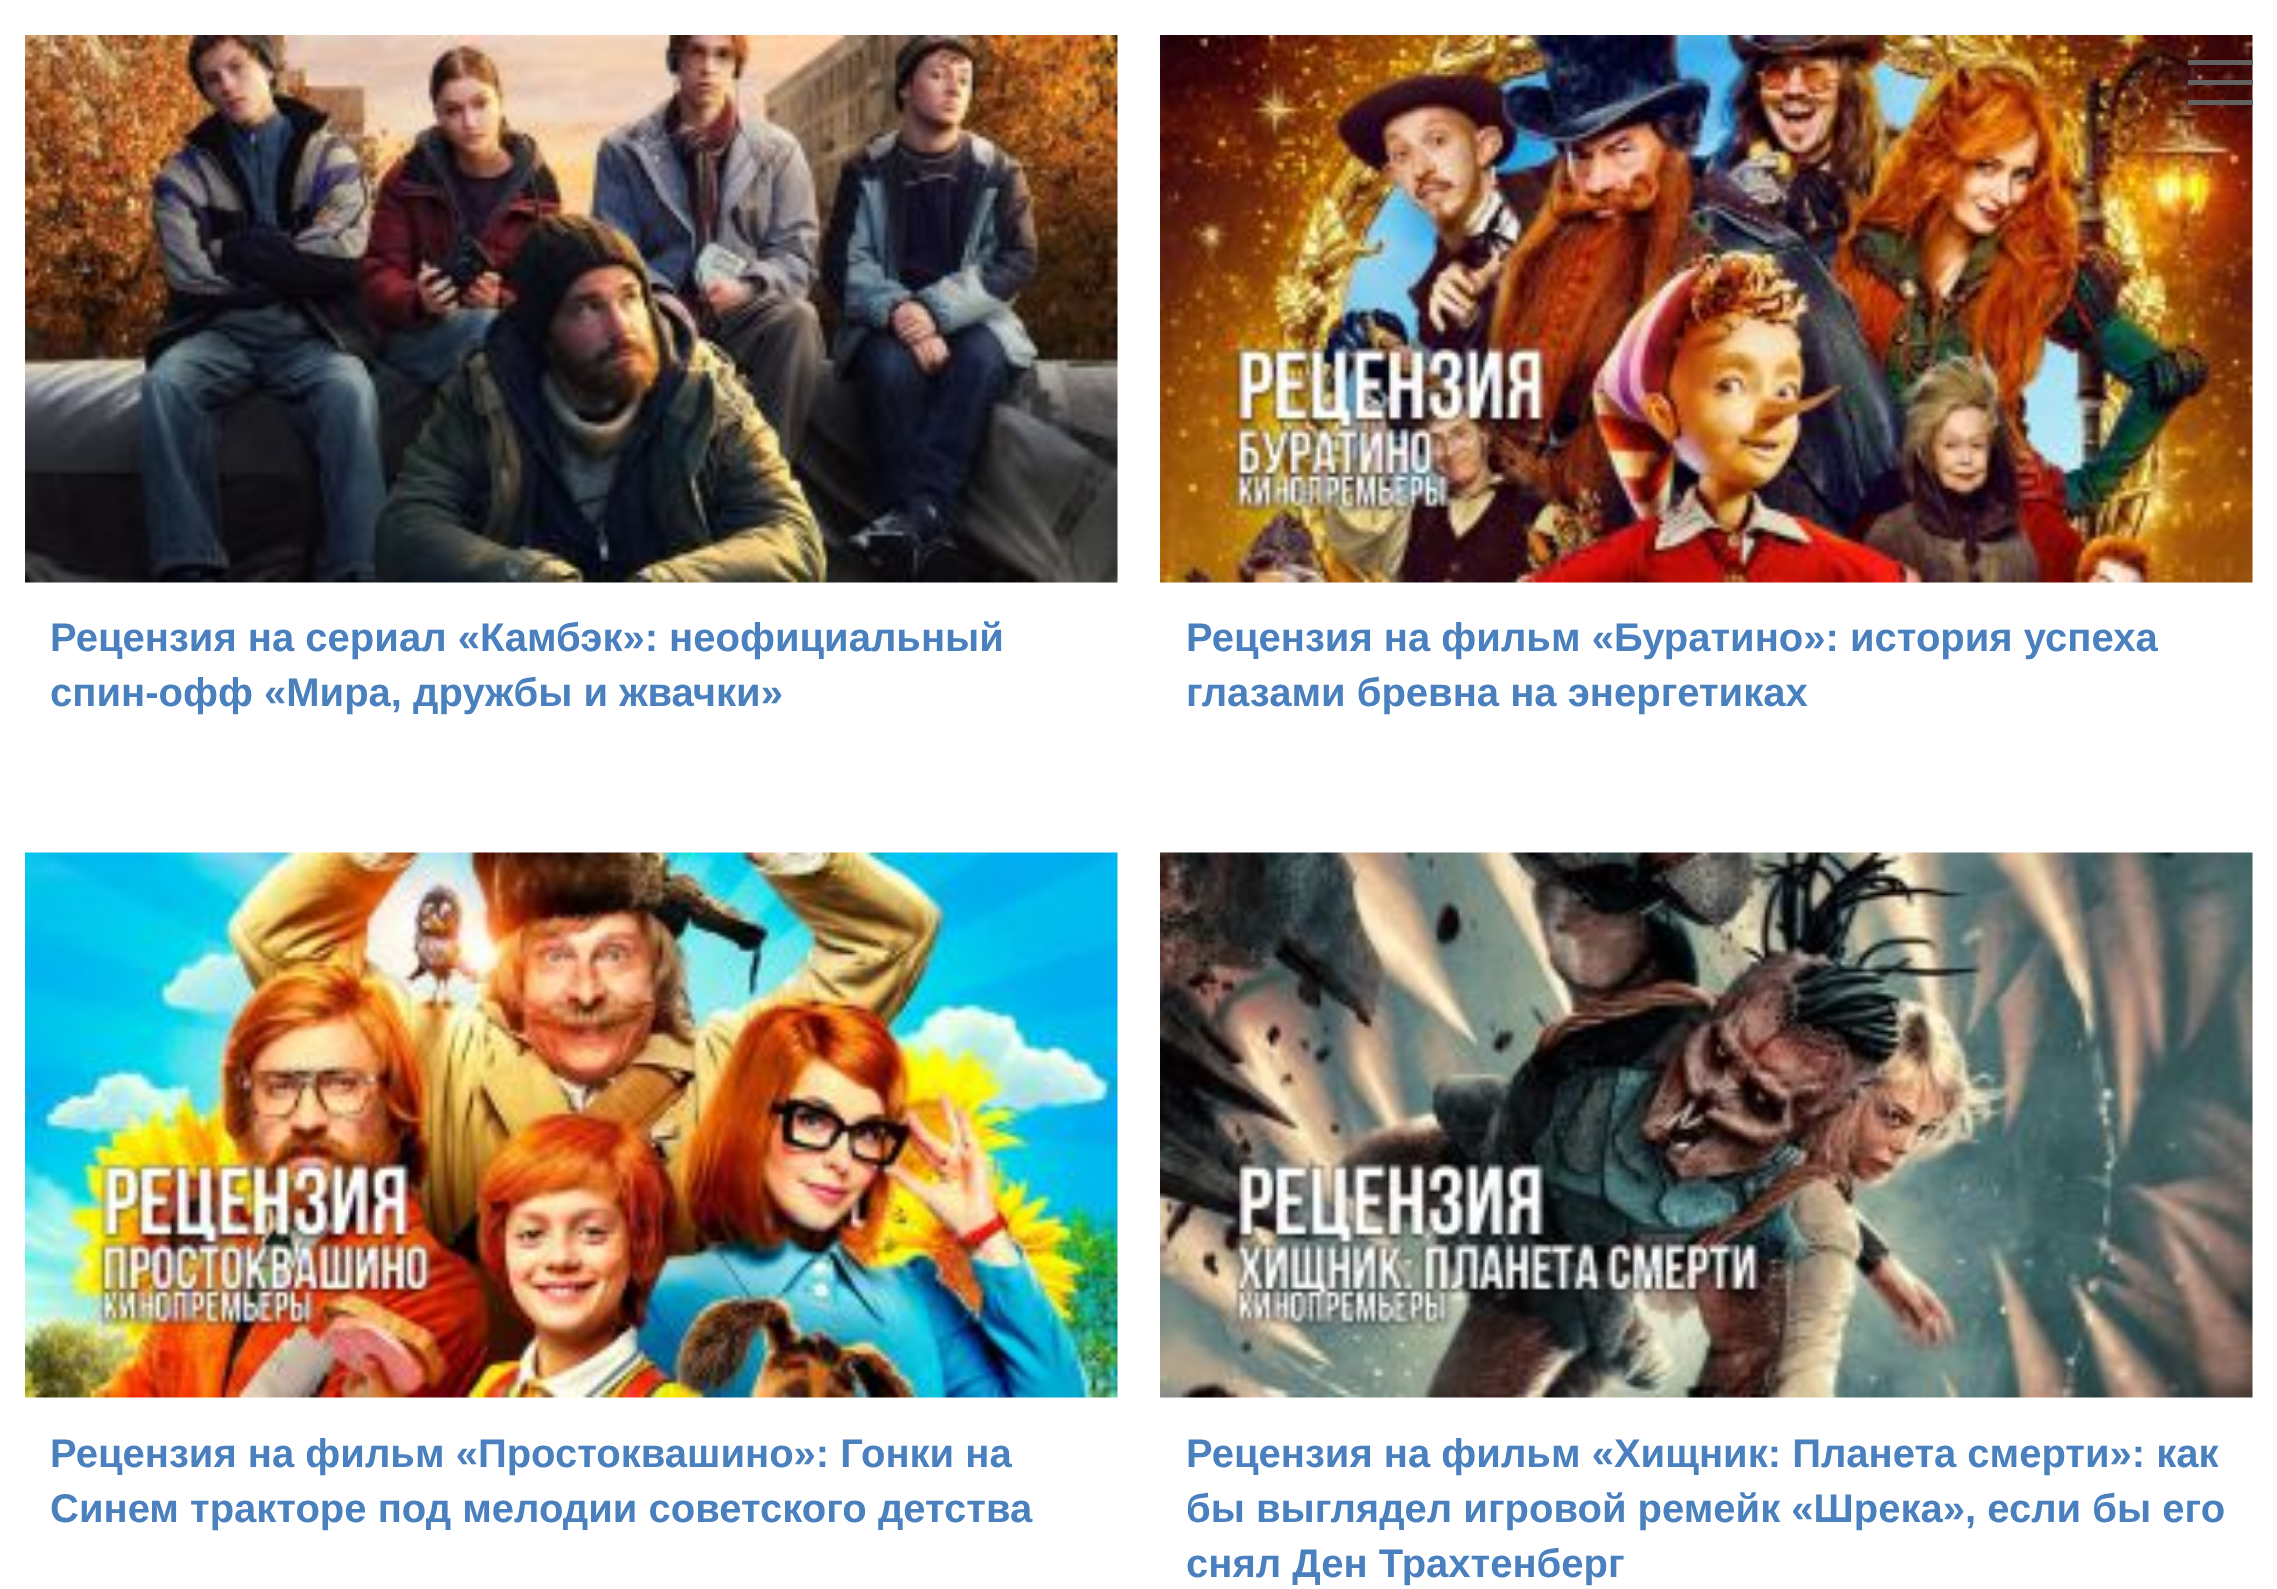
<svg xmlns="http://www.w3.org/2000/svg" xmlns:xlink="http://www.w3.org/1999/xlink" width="2277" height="1589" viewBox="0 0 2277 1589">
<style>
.cls-1{font:bold 40px Liberation Sans;fill:#4a80be}
</style>
<rect width="100%" height="100%" fill="#ffffff"/>
<image xlink:href="image1.png" x="1160" y="35" width="1093" height="548"/>
<rect fill="#616161" x="2188" y="80" width="65" height="5"/>
<rect fill="#616161" x="2188" y="60" width="65" height="5"/>
<rect fill="#616161" x="2188" y="100" width="65" height="5"/>
<image xlink:href="image0.png" x="25" y="35" width="1093" height="548"/>
<image xlink:href="image2.png" x="25" y="852" width="1093" height="546"/>
<image xlink:href="image3.png" x="1160" y="852" width="1093" height="546"/>
<text class="cls-1"><tspan x="50" y="651">Рецензия на сериал «Камбэк»: неофициальный</tspan><tspan x="50" y="706">спин-офф «Мира, дружбы и жвачки»</tspan></text>
<text class="cls-1"><tspan x="1186" y="651">Рецензия на фильм «Буратино»: история успеха</tspan><tspan x="1186" y="706">глазами бревна на энергетиках</tspan></text>
<text class="cls-1"><tspan x="50" y="1467">Рецензия на фильм «Простоквашино»: Гонки на</tspan><tspan x="50" y="1522">Синем тракторе под мелодии советского детства</tspan></text>
<text class="cls-1"><tspan x="1186" y="1467">Рецензия на фильм «Хищник: Планета смерти»: как</tspan><tspan x="1186" y="1522">бы выглядел игровой ремейк «Шрека», если бы его</tspan><tspan x="1186" y="1577">снял Ден Трахтенберг</tspan></text>
</svg>
